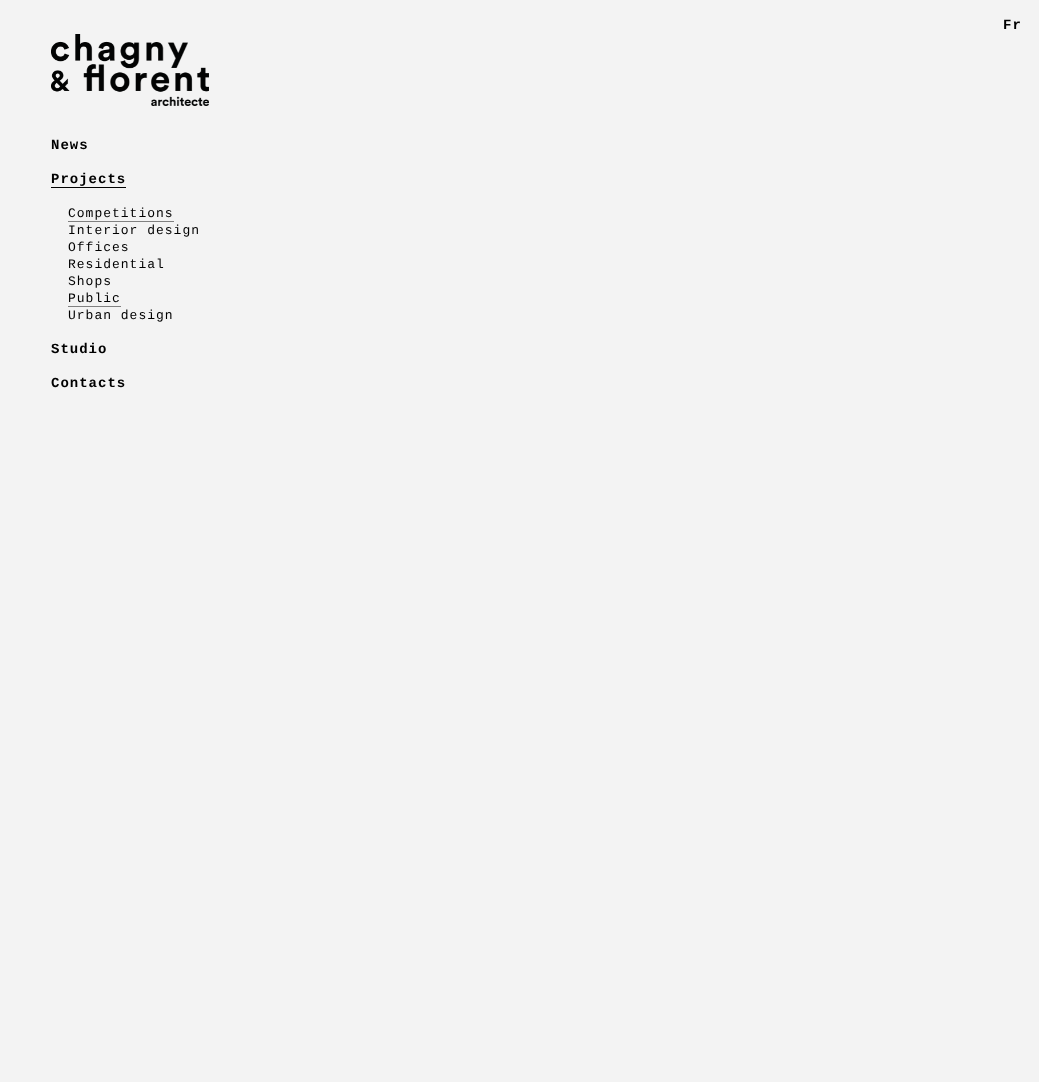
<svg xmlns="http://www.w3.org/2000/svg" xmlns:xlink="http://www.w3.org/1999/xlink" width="1039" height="1082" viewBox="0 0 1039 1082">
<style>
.cls-1{font:bold 14px Liberation Mono;letter-spacing:1px;fill:#000000}
.cls-2{font:13px Liberation Mono;letter-spacing:1px;fill:#000000}
</style>
<rect width="100%" height="100%" fill="#f3f3f3"/>
<rect fill="#000000" x="51" y="187" width="75" height="1"/>
<rect fill="#808080" x="68" y="221" width="106" height="1"/>
<rect fill="#808080" x="68" y="306" width="53" height="1"/>
<image xlink:href="image0.png" x="51" y="34" width="158" height="72"/>
<text class="cls-1" x="1003" y="29">Fr</text>
<text class="cls-1" x="51" y="149">News</text>
<text class="cls-1" x="51" y="183">Projects</text>
<text class="cls-2"><tspan x="68" y="217">Competitions</tspan><tspan x="68" y="234">Interior design</tspan><tspan x="68" y="251">Offices</tspan><tspan x="68" y="268">Residential</tspan><tspan x="68" y="285">Shops</tspan><tspan x="68" y="302">Public</tspan><tspan x="68" y="319">Urban design</tspan></text>
<text class="cls-1" x="51" y="353">Studio</text>
<text class="cls-1" x="51" y="387">Contacts</text>
</svg>
